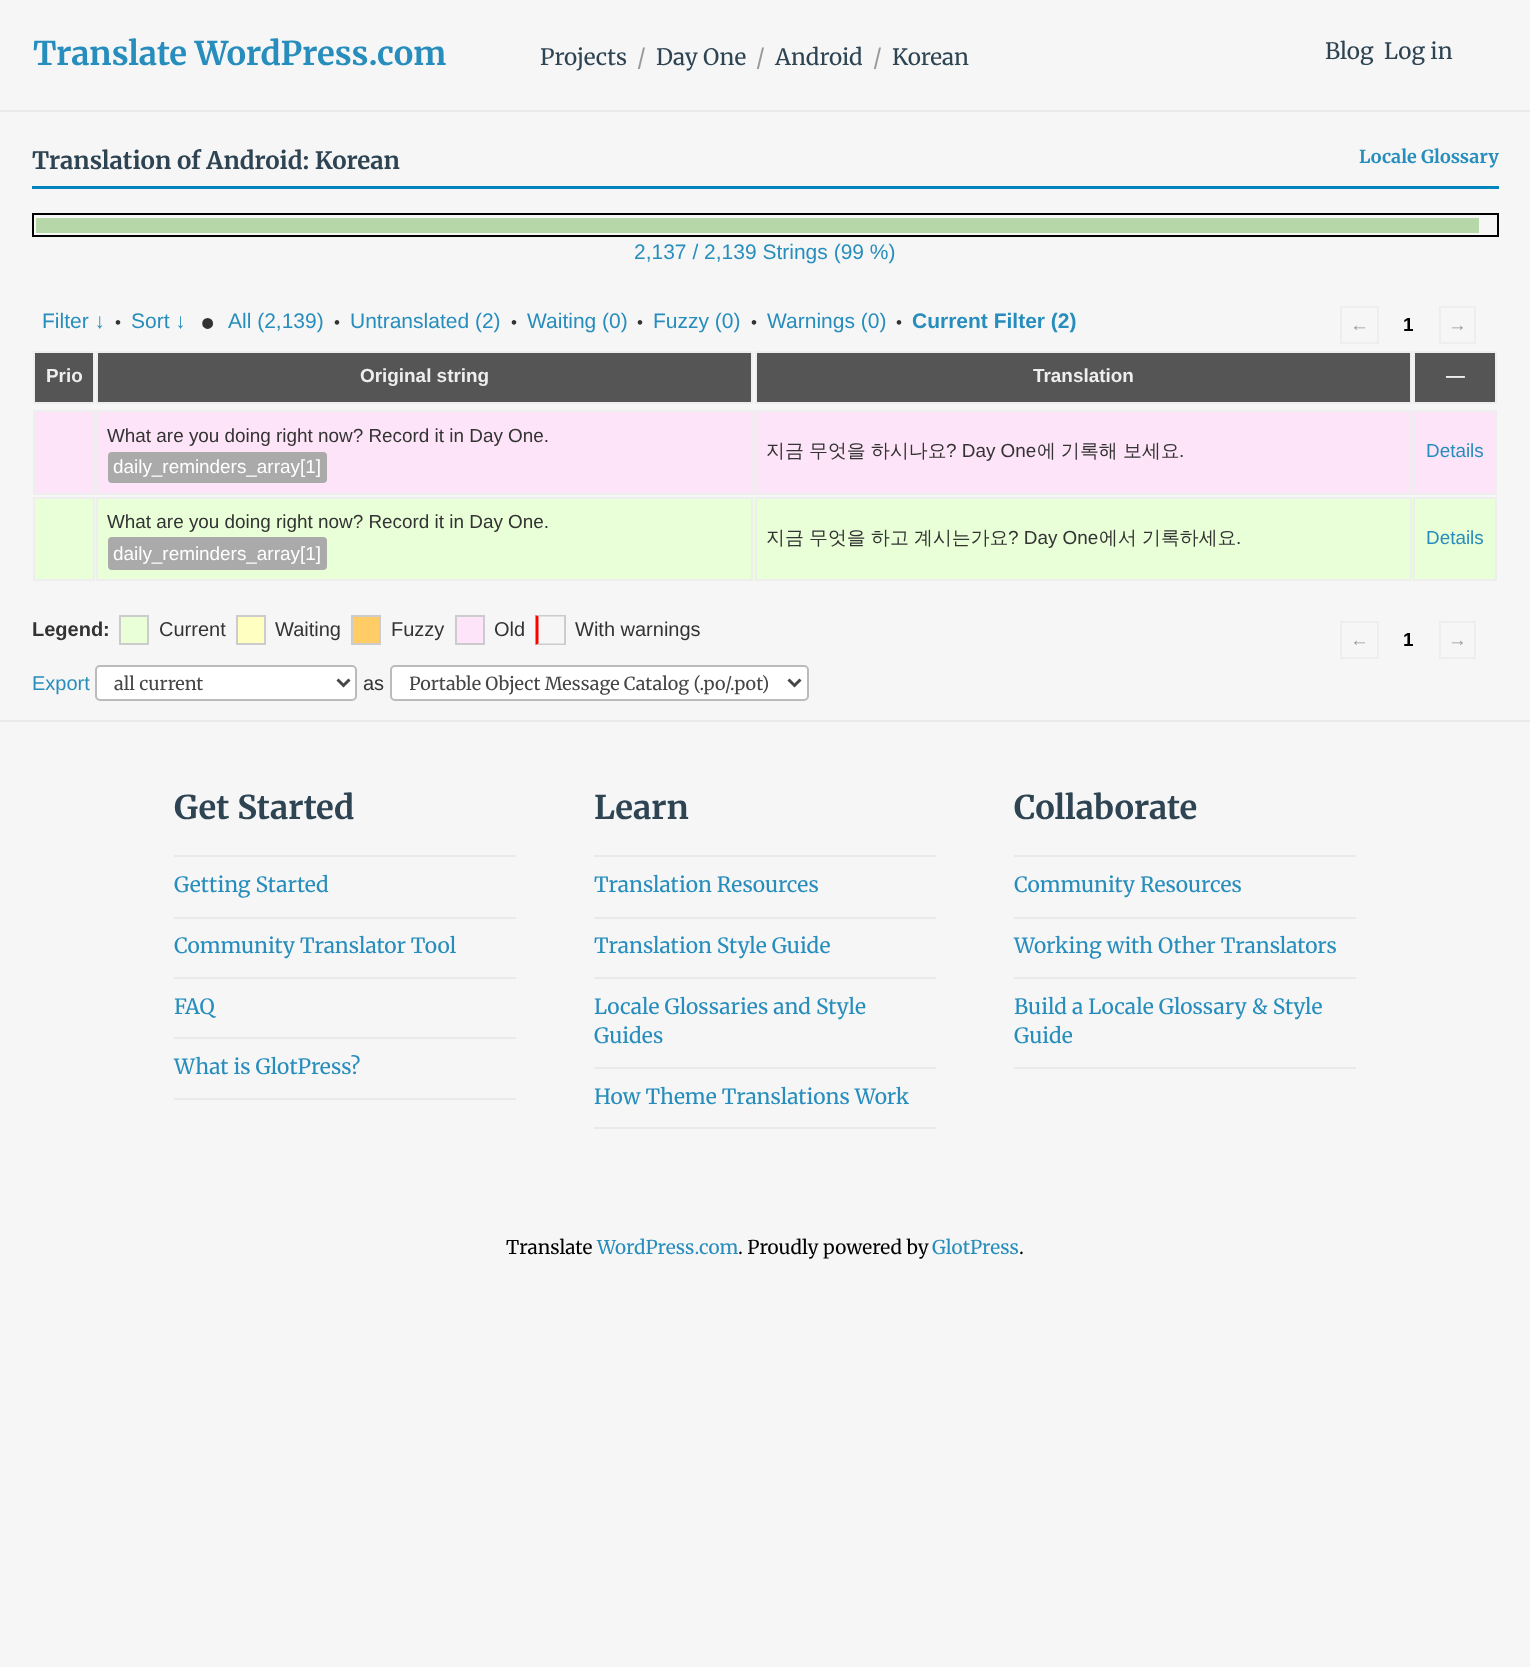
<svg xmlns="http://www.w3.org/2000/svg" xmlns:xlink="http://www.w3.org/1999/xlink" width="1530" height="1667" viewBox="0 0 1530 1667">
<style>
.cls-1{font:bold 32.75px Merriweather;fill:#278dbc}
.cls-2{font:22.5px Merriweather;fill:#2e4453}
.cls-3{font:22.5px Merriweather;fill:#999999}
.cls-4{font:bold 24px Merriweather;fill:#2e4453}
.cls-5{font:bold 18px Merriweather;fill:#278dbc}
.cls-6{font:21px Liberation Sans;fill:#278dbc}
.cls-7{font:17px Liberation Sans;fill:#333333}
.cls-8{font:bold 38px Liberation Sans;fill:#333333}
.cls-9{font:bold 21px Liberation Sans;fill:#278dbc}
.cls-10{font:18.9px Liberation Sans;fill:#999999}
.cls-11{font:bold 18.9px Liberation Sans;fill:#000000}
.cls-12{font:bold 18.9px Liberation Sans;fill:#eeeeee}
.cls-13{font:18.9px Liberation Sans;fill:#333333}
.cls-14{font:18.9px Liberation Sans;fill:#ffffff}
.cls-15{font:500 18.9px WenQuanYi Zen Hei;fill:#333333}
.cls-16{font:18.9px Liberation Sans;fill:#278dbc}
.cls-17{font:bold 20px Liberation Sans;fill:#333333}
.cls-18{font:20px Liberation Sans;fill:#333333}
.cls-19{font:20px Liberation Sans;fill:#278dbc}
.cls-20{font:18px Merriweather;fill:#464646}
.cls-21{font:bold 32.75px Merriweather;fill:#2e4453}
.cls-22{font:21px Merriweather;fill:#278dbc}
.cls-23{font:19px Merriweather;fill:#000000}
.cls-24{font:19px Merriweather;fill:#278dbc}
</style>
<defs>
<clipPath id="clip1"><rect x="410" y="671" width="361" height="25"/></clipPath>
</defs>
<rect width="100%" height="100%" fill="#f6f6f6"/>
<rect fill="#eaeaea" x="0" y="110" width="1530" height="2"/>
<rect fill="#0085be" x="32" y="186" width="1467" height="3"/>
<rect fill="none" stroke="#000000" stroke-width="2" x="33" y="214" width="1465" height="22"/>
<rect fill="#b6d7a8" x="36" y="218" width="1443" height="15"/>
<rect fill="none" stroke="#eeeeee" stroke-width="2" x="1341" y="307" width="37" height="36"/>
<rect fill="none" stroke="#eeeeee" stroke-width="2" x="1440" y="307" width="35" height="36"/>
<rect fill="#555555" stroke="#eeeeee" stroke-width="2" x="34" y="352" width="60" height="51"/>
<rect fill="#555555" stroke="#eeeeee" stroke-width="2" x="97" y="352" width="655" height="51"/>
<rect fill="#555555" stroke="#eeeeee" stroke-width="2" x="756" y="352" width="655" height="51"/>
<rect fill="#555555" stroke="#eeeeee" stroke-width="2" x="1414" y="352" width="82" height="51"/>
<rect fill="#fee4f8" x="35" y="410" width="1460" height="85"/>
<rect fill="none" stroke="#eeeeee" stroke-width="2" x="34" y="411" width="60" height="83"/>
<rect fill="none" stroke="#eeeeee" stroke-width="2" x="97" y="411" width="655" height="83"/>
<rect fill="#aaaaaa" x="108" y="452" width="219" height="31" rx="4"/>
<rect fill="none" stroke="#eeeeee" stroke-width="2" x="756" y="411" width="655" height="83"/>
<rect fill="none" stroke="#eeeeee" stroke-width="2" x="1414" y="411" width="82" height="83"/>
<rect fill="#e9ffd8" x="35" y="497" width="1460" height="84"/>
<rect fill="none" stroke="#eeeeee" stroke-width="2" x="34" y="498" width="60" height="82"/>
<rect fill="none" stroke="#eeeeee" stroke-width="2" x="97" y="498" width="655" height="82"/>
<rect fill="#aaaaaa" x="108" y="537" width="219" height="33" rx="4"/>
<rect fill="none" stroke="#eeeeee" stroke-width="2" x="756" y="498" width="655" height="82"/>
<rect fill="none" stroke="#eeeeee" stroke-width="2" x="1414" y="498" width="82" height="82"/>
<rect fill="#e9ffd8" stroke="#cccccc" stroke-width="2" x="120" y="616" width="28" height="28"/>
<rect fill="#ffffc2" stroke="#cccccc" stroke-width="2" x="237" y="616" width="28" height="28"/>
<rect fill="#ffcc66" stroke="#cccccc" stroke-width="2" x="352" y="616" width="28" height="28"/>
<rect fill="#fee4f8" stroke="#cccccc" stroke-width="2" x="456" y="616" width="28" height="28"/>
<path fill="#cccccc" d="M535.5 615H565.5L564 616.5H538.5Z"/>
<rect fill="#cccccc" x="564" y="615" width="2" height="30"/>
<path fill="#cccccc" d="M565.5 645H535.5L538.5 643.5H564Z"/>
<path fill="#ff0000" d="M535.5 645V615L538.5 616.5V643.5Z"/>
<rect fill="none" stroke="#eeeeee" stroke-width="2" x="1341" y="622" width="37" height="36"/>
<rect fill="none" stroke="#eeeeee" stroke-width="2" x="1440" y="622" width="35" height="36"/>
<rect fill="#ffffff" stroke="#bbbbbb" stroke-width="2" x="96" y="666" width="260" height="34" rx="4"/>
<path fill="none" stroke="#464646" stroke-width="3" d="M337.5 679.5L343.5 685.5L349.5 679.5"/>
<rect fill="#ffffff" stroke="#bbbbbb" stroke-width="2" x="391" y="666" width="417" height="34" rx="4"/>
<path fill="none" stroke="#464646" stroke-width="3" d="M788.5 679.5L794.5 685.5L800.5 679.5"/>
<rect fill="#eaeaea" x="0" y="720" width="1530" height="2"/>
<rect fill="#eaeaea" x="174" y="1098" width="342" height="2"/>
<rect fill="#eaeaea" x="174" y="855" width="342" height="2"/>
<rect fill="#eaeaea" x="174" y="917" width="342" height="2"/>
<rect fill="#eaeaea" x="174" y="977" width="342" height="2"/>
<rect fill="#eaeaea" x="174" y="1037" width="342" height="2"/>
<rect fill="#eaeaea" x="594" y="1127" width="342" height="2"/>
<rect fill="#eaeaea" x="594" y="855" width="342" height="2"/>
<rect fill="#eaeaea" x="594" y="917" width="342" height="2"/>
<rect fill="#eaeaea" x="594" y="977" width="342" height="2"/>
<rect fill="#eaeaea" x="594" y="1067" width="342" height="2"/>
<rect fill="#eaeaea" x="1014" y="1067" width="342" height="2"/>
<rect fill="#eaeaea" x="1014" y="855" width="342" height="2"/>
<rect fill="#eaeaea" x="1014" y="917" width="342" height="2"/>
<rect fill="#eaeaea" x="1014" y="977" width="342" height="2"/>
<text class="cls-1" x="33" y="65">Translate WordPress.com</text>
<text class="cls-2" x="540" y="65">Projects</text>
<text class="cls-3" x="637" y="65">/</text>
<text class="cls-2" x="656" y="65">Day One</text>
<text class="cls-3" x="756" y="65">/</text>
<text class="cls-2" x="775" y="65">Android</text>
<text class="cls-3" x="873" y="65">/</text>
<text class="cls-2" x="892" y="65">Korean</text>
<text class="cls-2" x="1325" y="59">Blog</text>
<text class="cls-2" x="1384" y="59">Log in</text>
<text class="cls-4" x="32" y="169">Translation of Android: Korean</text>
<text class="cls-5" x="1359" y="163">Locale Glossary</text>
<text class="cls-6" x="634" y="259">2,137 / 2,139 Strings (99 %)</text>
<text class="cls-6" x="42" y="328">Filter ↓</text>
<text class="cls-7" x="115" y="328">•</text>
<text class="cls-6" x="131" y="328">Sort ↓</text>
<text class="cls-8" x="201" y="336">•</text>
<text class="cls-6" x="228" y="328">All (2,139)</text>
<text class="cls-7" x="334" y="328">•</text>
<text class="cls-6" x="350" y="328">Untranslated (2)</text>
<text class="cls-7" x="511" y="328">•</text>
<text class="cls-6" x="527" y="328">Waiting (0)</text>
<text class="cls-7" x="637" y="328">•</text>
<text class="cls-6" x="653" y="328">Fuzzy (0)</text>
<text class="cls-7" x="751" y="328">•</text>
<text class="cls-6" x="767" y="328">Warnings (0)</text>
<text class="cls-7" x="896" y="328">•</text>
<text class="cls-9" x="912" y="328">Current Filter (2)</text>
<text class="cls-10" x="1350" y="331">←</text>
<text class="cls-11" x="1403" y="331">1</text>
<text class="cls-10" x="1448" y="331">→</text>
<text class="cls-12" x="46" y="382">Prio</text>
<text class="cls-12" x="360" y="382">Original string</text>
<text class="cls-12" x="1033" y="382">Translation</text>
<text class="cls-12" x="1446" y="382">—</text>
<text class="cls-13" x="107" y="442">What are you doing right now? Record it in Day One.</text>
<text class="cls-14" x="113" y="473">daily_reminders_array[1]</text>
<text class="cls-15" x="766" y="457">지금</text>
<text class="cls-15" x="809" y="457">무엇을</text>
<text class="cls-15" x="871" y="457">하시나요</text>
<text class="cls-13" x="946" y="457">? Day One</text>
<text class="cls-15" x="1037" y="457">에</text>
<text class="cls-15" x="1061" y="457">기록해</text>
<text class="cls-15" x="1123" y="457">보세요</text>
<text class="cls-13" x="1179" y="457">.</text>
<text class="cls-16" x="1426" y="457">Details</text>
<text class="cls-13" x="107" y="528">What are you doing right now? Record it in Day One.</text>
<text class="cls-14" x="113" y="560">daily_reminders_array[1]</text>
<text class="cls-15" x="766" y="544">지금</text>
<text class="cls-15" x="809" y="544">무엇을</text>
<text class="cls-15" x="871" y="544">하고</text>
<text class="cls-15" x="914" y="544">계시는가요</text>
<text class="cls-13" x="1008" y="544">? Day One</text>
<text class="cls-15" x="1099" y="544">에서</text>
<text class="cls-15" x="1142" y="544">기록하세요</text>
<text class="cls-13" x="1236" y="544">.</text>
<text class="cls-16" x="1426" y="544">Details</text>
<text class="cls-17" x="32" y="636">Legend:</text>
<text class="cls-18" x="159" y="636">Current</text>
<text class="cls-18" x="275" y="636">Waiting</text>
<text class="cls-18" x="391" y="636">Fuzzy</text>
<text class="cls-18" x="494" y="636">Old</text>
<text class="cls-18" x="575" y="636">With warnings</text>
<text class="cls-10" x="1350" y="646">←</text>
<text class="cls-11" x="1403" y="646">1</text>
<text class="cls-10" x="1448" y="646">→</text>
<text class="cls-19" x="32" y="690">Export</text>
<text class="cls-20" x="114" y="690">all current</text>
<text class="cls-18" x="363" y="690">as</text>
<g clip-path="url(#clip1)">
<text class="cls-20" x="409" y="690">Portable Object Message Catalog (.po/.pot)</text>
</g>
<text class="cls-21" x="174" y="819">Get Started</text>
<text class="cls-22" x="174" y="892">Getting Started</text>
<text class="cls-22" x="174" y="953">Community Translator Tool</text>
<text class="cls-22" x="174" y="1014">FAQ</text>
<text class="cls-22" x="174" y="1074">What is GlotPress?</text>
<text class="cls-21" x="594" y="819">Learn</text>
<text class="cls-22" x="594" y="892">Translation Resources</text>
<text class="cls-22" x="594" y="953">Translation Style Guide</text>
<text class="cls-22"><tspan x="594" y="1014">Locale Glossaries and Style</tspan><tspan x="594" y="1043">Guides</tspan></text>
<text class="cls-22" x="594" y="1104">How Theme Translations Work</text>
<text class="cls-21" x="1014" y="819">Collaborate</text>
<text class="cls-22" x="1014" y="892">Community Resources</text>
<text class="cls-22" x="1014" y="953">Working with Other Translators</text>
<text class="cls-22"><tspan x="1014" y="1014">Build a Locale Glossary &amp; Style</tspan><tspan x="1014" y="1043">Guide</tspan></text>
<text class="cls-23" x="506" y="1254">Translate</text>
<text class="cls-24" x="597" y="1254">WordPress.com</text>
<text class="cls-23" x="738" y="1254">. Proudly powered by</text>
<text class="cls-24" x="932" y="1254">GlotPress</text>
<text class="cls-23" x="1019" y="1254">.</text>
</svg>
